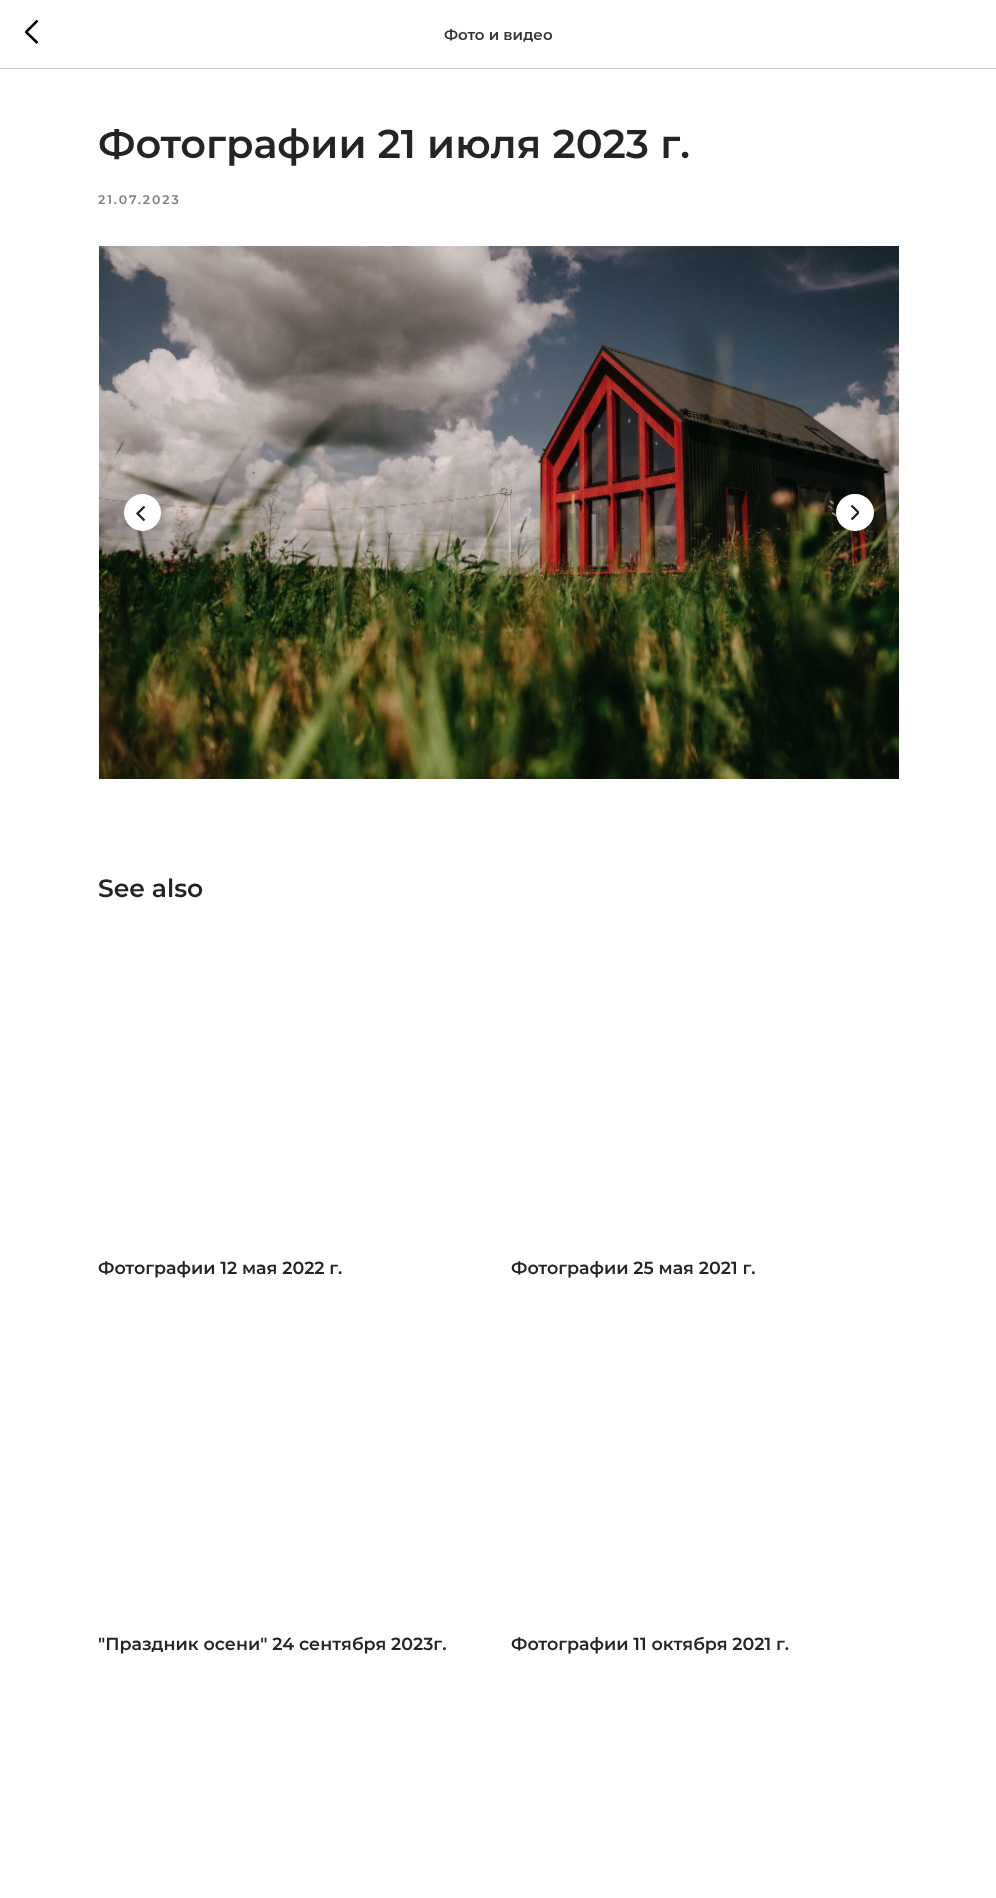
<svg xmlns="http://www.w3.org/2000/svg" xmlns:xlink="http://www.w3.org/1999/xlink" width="996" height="1898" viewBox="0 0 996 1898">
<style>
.cls-1{font:600 15px Montserrat;fill:#333333}
.cls-2{font:600 40px Montserrat;fill:#242424}
.cls-3{font:600 12.5px Montserrat;letter-spacing:1.9px;fill:#808080}
.cls-4{font:600 25px Montserrat;fill:#242424}
.cls-5{font:600 17.5px Montserrat;fill:#242424}
</style>
<defs>
<clipPath id="clip1"><rect x="25" y="20" width="14" height="25"/></clipPath>
<clipPath id="clip2"><rect x="850" y="504" width="9" height="16"/></clipPath>
</defs>
<rect width="100%" height="100%" fill="#ffffff"/>
<rect fill="#cccccc" x="0" y="68" width="996" height="1"/>
<g clip-path="url(#clip1)">
<path fill="none" stroke="#000000" stroke-width="2.5" d="M37.5 43L26 32L37.5 20.5"/>
</g>
<image xlink:href="image0.png" x="99" y="246" width="800" height="533"/>
<circle fill="#ffffff" cx="142.5" cy="512.5" r="18.5"/>
<path fill="none" stroke="#242424" stroke-width="2.3" d="M144.5 520.5L137.5 513.5L144.5 506.5"/>
<rect fill="#ffffff" x="836" y="494" width="38" height="37" rx="18.5"/>
<g clip-path="url(#clip2)">
<path fill="none" stroke="#242424" stroke-width="2.3" d="M851.5 505.5L858.5 512.5L851.5 519.5"/>
</g>
<text class="cls-1" x="444" y="40">Фото и видео</text>
<text class="cls-2" x="98" y="158">Фотографии 21 июля 2023 г.</text>
<text class="cls-3" x="98" y="204">21.07.2023</text>
<text class="cls-4" x="98" y="897">See also</text>
<text class="cls-5" x="98" y="1274">Фотографии 12 мая 2022 г.</text>
<text class="cls-5" x="511" y="1274">Фотографии 25 мая 2021 г.</text>
<text class="cls-5" x="98" y="1650">"Праздник осени" 24 сентября 2023г.</text>
<text class="cls-5" x="511" y="1650">Фотографии 11 октября 2021 г.</text>
</svg>
